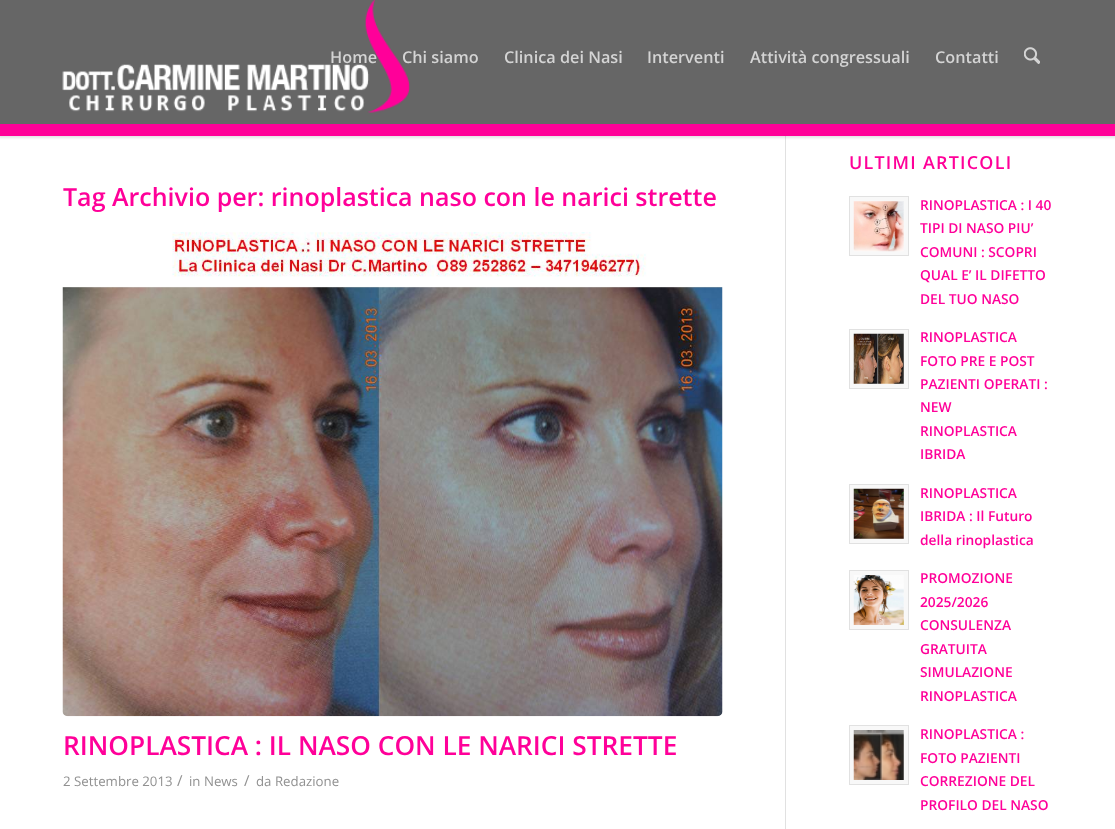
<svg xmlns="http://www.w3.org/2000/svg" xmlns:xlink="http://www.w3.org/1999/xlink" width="1115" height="829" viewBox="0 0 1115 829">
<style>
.cls-1{font:600 16.25px Open Sans;fill:#d4d4d4}
.cls-2{font:600 25px Open Sans;fill:#ff0099}
.cls-3{font:600 26.25px Open Sans;fill:#ff0099}
.cls-4{font:13.25px Open Sans;fill:#919191}
.cls-5{font:15px Open Sans;fill:#919191}
.cls-6{font:600 17.9px Open Sans;letter-spacing:1.25px;fill:#ff0099}
.cls-7{font:600 13.75px Open Sans;fill:#ff0099}
</style>
<rect width="100%" height="100%" fill="#ffffff"/>
<rect fill="#e1e1e1" x="785" y="136" width="1" height="693"/>
<rect fill="#000000" fill-opacity="0.1" filter="blur(1px)" x="-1" y="-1" width="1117" height="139"/>
<rect fill="#ff0198" x="0" y="124" width="1115" height="12"/>
<rect fill="#666666" x="0" y="0" width="1115" height="124"/>
<image xlink:href="image0.png" x="62" y="0" width="348" height="113"/>
<image xlink:href="image1.png" x="1024" y="47" width="16" height="17"/>
<image xlink:href="image2.png" x="62" y="232" width="661" height="485"/>
<rect fill="#f8f8f8" stroke="#e1e1e1" x="849.5" y="196.5" width="59" height="59"/>
<image xlink:href="image3.png" x="853" y="201" width="51" height="51"/>
<rect fill="#f8f8f8" stroke="#e1e1e1" x="849.5" y="329.5" width="59" height="59"/>
<image xlink:href="image4.png" x="853" y="333" width="51" height="51"/>
<rect fill="#f8f8f8" stroke="#e1e1e1" x="849.5" y="484.5" width="59" height="59"/>
<image xlink:href="image5.png" x="853" y="488" width="51" height="51"/>
<rect fill="#f8f8f8" stroke="#e1e1e1" x="849.5" y="570.5" width="59" height="59"/>
<image xlink:href="image6.png" x="853" y="575" width="51" height="50"/>
<rect fill="#f8f8f8" stroke="#e1e1e1" x="849.5" y="725.5" width="59" height="59"/>
<image xlink:href="image7.png" x="853" y="730" width="51" height="50"/>
<text class="cls-1" x="330" y="63">Home</text>
<text class="cls-1" x="402" y="63">Chi siamo</text>
<text class="cls-1" x="504" y="63">Clinica dei Nasi</text>
<text class="cls-1" x="647" y="63">Interventi</text>
<text class="cls-1" x="750" y="63">Attività congressuali</text>
<text class="cls-1" x="935" y="63">Contatti</text>
<text class="cls-2" x="63" y="206">Tag Archivio per: rinoplastica naso con le narici strette</text>
<text class="cls-3" x="63" y="755">RINOPLASTICA : IL NASO CON LE NARICI STRETTE</text>
<text class="cls-4" x="63" y="786">2 Settembre 2013</text>
<text class="cls-5" x="177" y="786">/</text>
<text class="cls-4" x="189" y="786">in News</text>
<text class="cls-5" x="244" y="786">/</text>
<text class="cls-4" x="256" y="786">da Redazione</text>
<text class="cls-6" x="849" y="169">ULTIMI ARTICOLI</text>
<text class="cls-7"><tspan x="920" y="210">RINOPLASTICA : I 40</tspan><tspan x="920" y="233">TIPI DI NASO PIU’</tspan><tspan x="920" y="257">COMUNI : SCOPRI</tspan><tspan x="920" y="280">QUAL E’ IL DIFETTO</tspan><tspan x="920" y="304">DEL TUO NASO</tspan></text>
<text class="cls-7"><tspan x="920" y="342">RINOPLASTICA</tspan><tspan x="920" y="366">FOTO PRE E POST</tspan><tspan x="920" y="389">PAZIENTI OPERATI :</tspan><tspan x="920" y="412">NEW</tspan><tspan x="920" y="436">RINOPLASTICA</tspan><tspan x="920" y="459">IBRIDA</tspan></text>
<text class="cls-7"><tspan x="920" y="498">RINOPLASTICA</tspan><tspan x="920" y="521">IBRIDA : Il Futuro</tspan><tspan x="920" y="545">della rinoplastica</tspan></text>
<text class="cls-7"><tspan x="920" y="583">PROMOZIONE</tspan><tspan x="920" y="607">2025/2026</tspan><tspan x="920" y="630">CONSULENZA</tspan><tspan x="920" y="654">GRATUITA</tspan><tspan x="920" y="677">SIMULAZIONE</tspan><tspan x="920" y="701">RINOPLASTICA</tspan></text>
<text class="cls-7"><tspan x="920" y="739">RINOPLASTICA :</tspan><tspan x="920" y="763">FOTO PAZIENTI</tspan><tspan x="920" y="786">CORREZIONE DEL</tspan><tspan x="920" y="810">PROFILO DEL NASO</tspan></text>
</svg>
